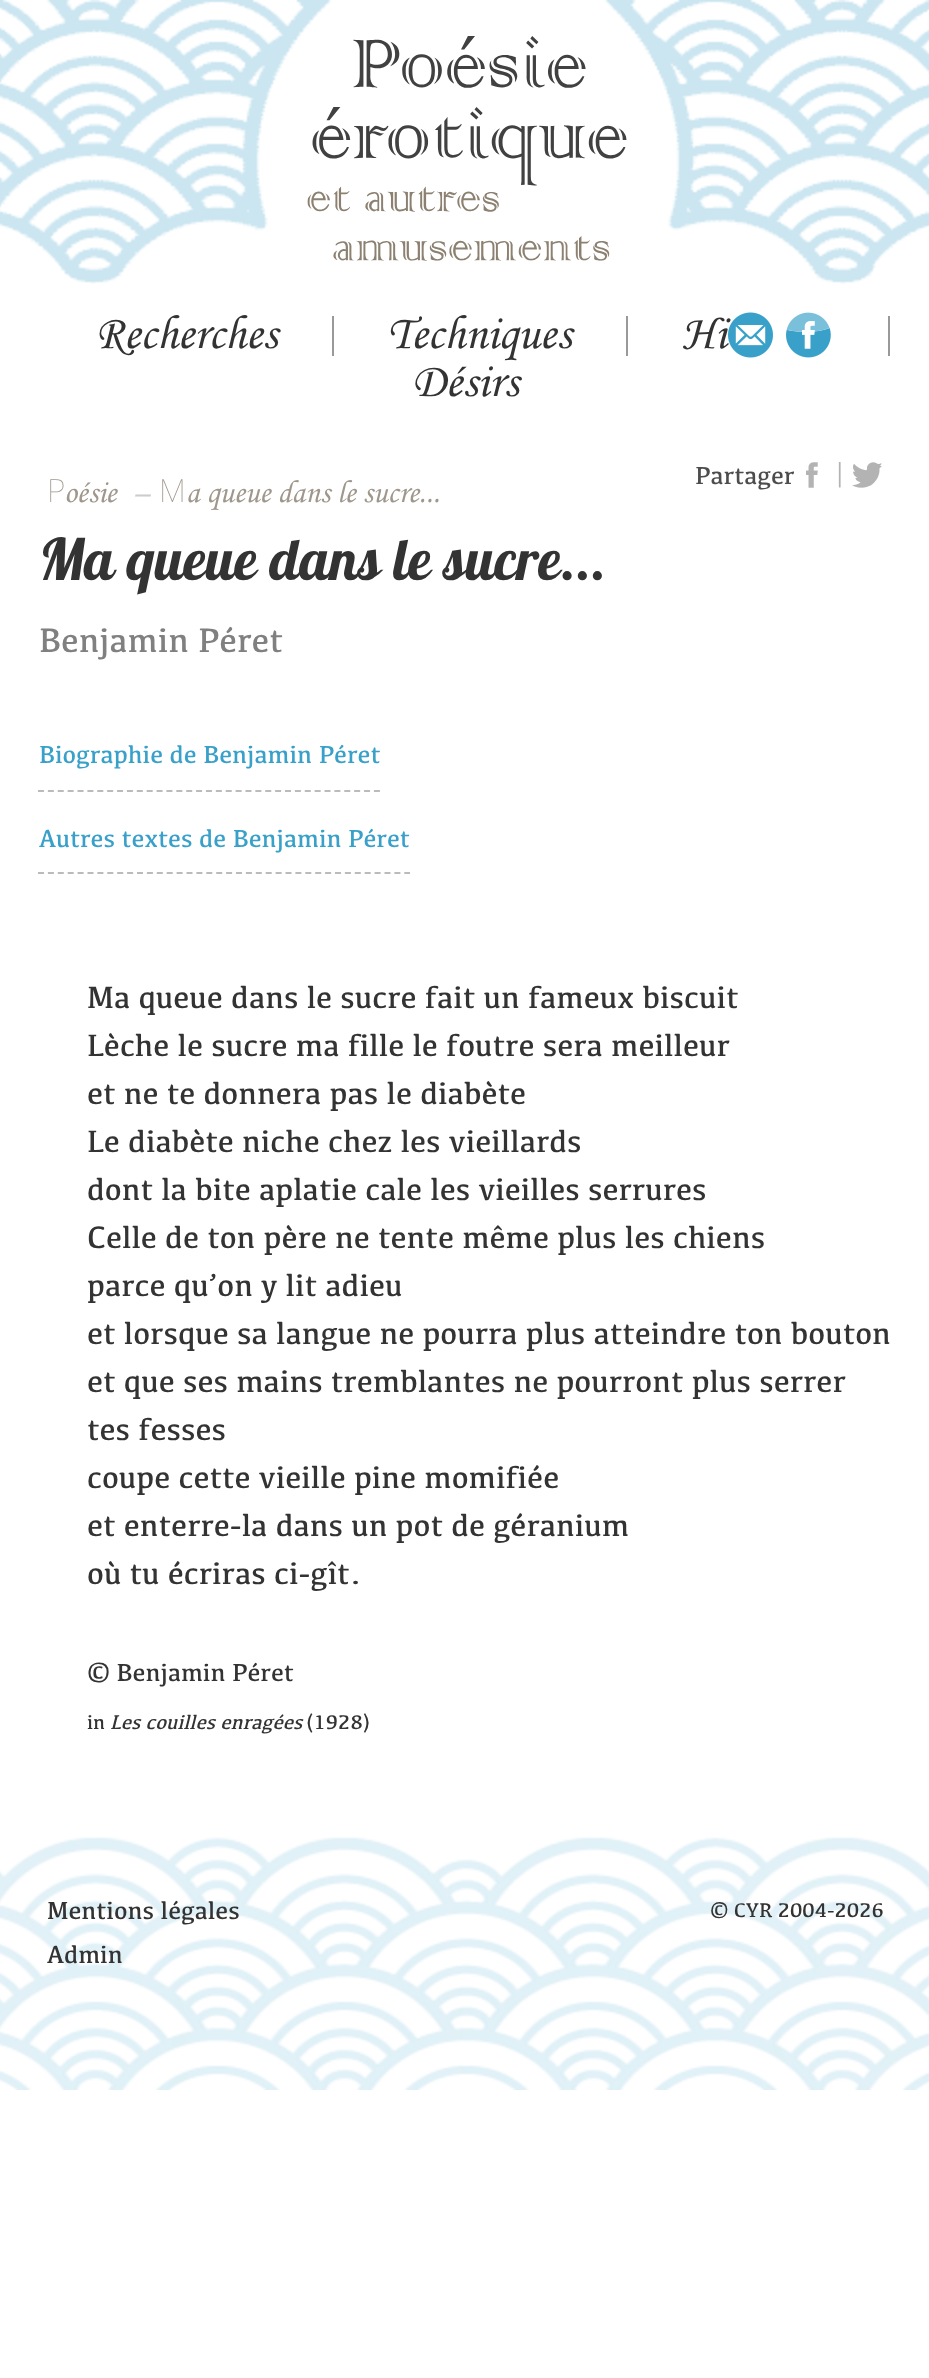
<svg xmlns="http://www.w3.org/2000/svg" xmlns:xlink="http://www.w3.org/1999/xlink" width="929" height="2378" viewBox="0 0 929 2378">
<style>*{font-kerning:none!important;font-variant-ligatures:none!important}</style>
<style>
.cls-1{font:italic 48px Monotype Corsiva;fill:#333333}
.cls-2{font:25.6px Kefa;fill:#4d4d4d}
.cls-3{font:25.6px Kefa;fill:#b3b3b3}
.cls-4{font:100 32px Noto Sans;fill:#9f978c}
.cls-5{font:italic 32px Monotype Corsiva;fill:#9f978c}
.cls-6{font:italic 32px Monotype Corsiva;fill:#cccccc}
.cls-7{font:57.5px 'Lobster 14';fill:#333333}
.cls-8{font:35.25px Kefa;fill:#808080}
.cls-9{font:25.6px Kefa;fill:#39a1c9}
.cls-10{font:32px Kefa;fill:#333333}
.cls-11{font:25.6px Kefa;fill:#333333}
.cls-12{font:20.5px Kefa;fill:#333333}
.cls-13{font:italic 20.5px Kefa;fill:#333333}
</style>
<rect width="100%" height="100%" fill="#ffffff"/>
<image xlink:href="image0.png" x="0" y="0" width="929" height="284"/>
<image xlink:href="image1.png" x="307" y="36" width="320" height="225"/>
<rect fill="#999999" x="332" y="316" width="2" height="40"/>
<rect fill="#999999" x="626" y="316" width="2" height="40"/>
<rect fill="#999999" x="888" y="316" width="2" height="40"/>
<image xlink:href="image3.png" x="786" y="312" width="45" height="46"/>
<image xlink:href="image4.png" x="806" y="462" width="12" height="26"/>
<image xlink:href="image5.png" x="852" y="462" width="30" height="26"/>
<path fill="none" stroke="#bbbbbb" stroke-width="2" stroke-dasharray="6 3.88" d="M38 791H380"/>
<path fill="none" stroke="#bbbbbb" stroke-width="2" stroke-dasharray="6 3.9" d="M38 873H410"/>
<image xlink:href="image6.png" x="0" y="1837" width="929" height="253"/>
<text class="cls-1" x="95" y="348">Recherches</text>
<text class="cls-1" x="387" y="348">Techniques</text>
<text class="cls-1" x="682" y="348">Hi</text>
<text class="cls-1" x="412" y="396">Désirs</text>
<image xlink:href="image2.png" x="728" y="312" width="45" height="46"/>
<text class="cls-2" x="695" y="484">Partager</text>
<text class="cls-3" x="836" y="482">|</text>
<text class="cls-4" x="47" y="502">P</text>
<text class="cls-5" x="64" y="502">oésie</text>
<text class="cls-6" x="133" y="502">–</text>
<text class="cls-4" x="159" y="502">M</text>
<text class="cls-5" x="186" y="502">a queue dans le sucre...</text>
<text class="cls-7" x="39" y="580">Ma queue dans le</text>
<text class="cls-7" x="444" y="580">sucre...</text>
<text class="cls-8" x="39" y="652">Benjamin Péret</text>
<text class="cls-9" x="39" y="763">Biographie de Benjamin Péret</text>
<text class="cls-9" x="39" y="847">Autres textes de Benjamin Péret</text>
<text class="cls-10"><tspan x="87" y="1008">Ma queue dans le sucre fait un fameux biscuit</tspan><tspan x="87" y="1056">Lèche le sucre ma fille le foutre sera meilleur</tspan><tspan x="87" y="1104">et ne te donnera pas le diabète</tspan><tspan x="87" y="1152">Le diabète niche chez les vieillards</tspan><tspan x="87" y="1200">dont la bite aplatie cale les vieilles serrures</tspan><tspan x="87" y="1248">Celle de ton père ne tente même plus les chiens</tspan><tspan x="87" y="1296">parce qu’on y lit adieu</tspan><tspan x="87" y="1344">et lorsque sa langue ne pourra plus atteindre ton bouton</tspan><tspan x="87" y="1392">et que ses mains tremblantes ne pourront plus serrer</tspan><tspan x="87" y="1440">tes fesses</tspan><tspan x="87" y="1488">coupe cette vieille pine momifiée</tspan><tspan x="87" y="1536">et enterre-la dans un pot de géranium</tspan><tspan x="87" y="1584">où tu écriras ci-gît.</tspan></text>
<text class="cls-11" x="87" y="1681">© Benjamin Péret</text>
<text class="cls-12" x="87" y="1729">in</text>
<text class="cls-13" x="110" y="1729">Les couilles enragées</text>
<text class="cls-12" x="307" y="1729">(1928)</text>
<text class="cls-11" x="47" y="1919">Mentions légales</text>
<text class="cls-12" x="710" y="1917">© CYR 2004-2026</text>
<text class="cls-11" x="47" y="1963">Admin</text>
</svg>
